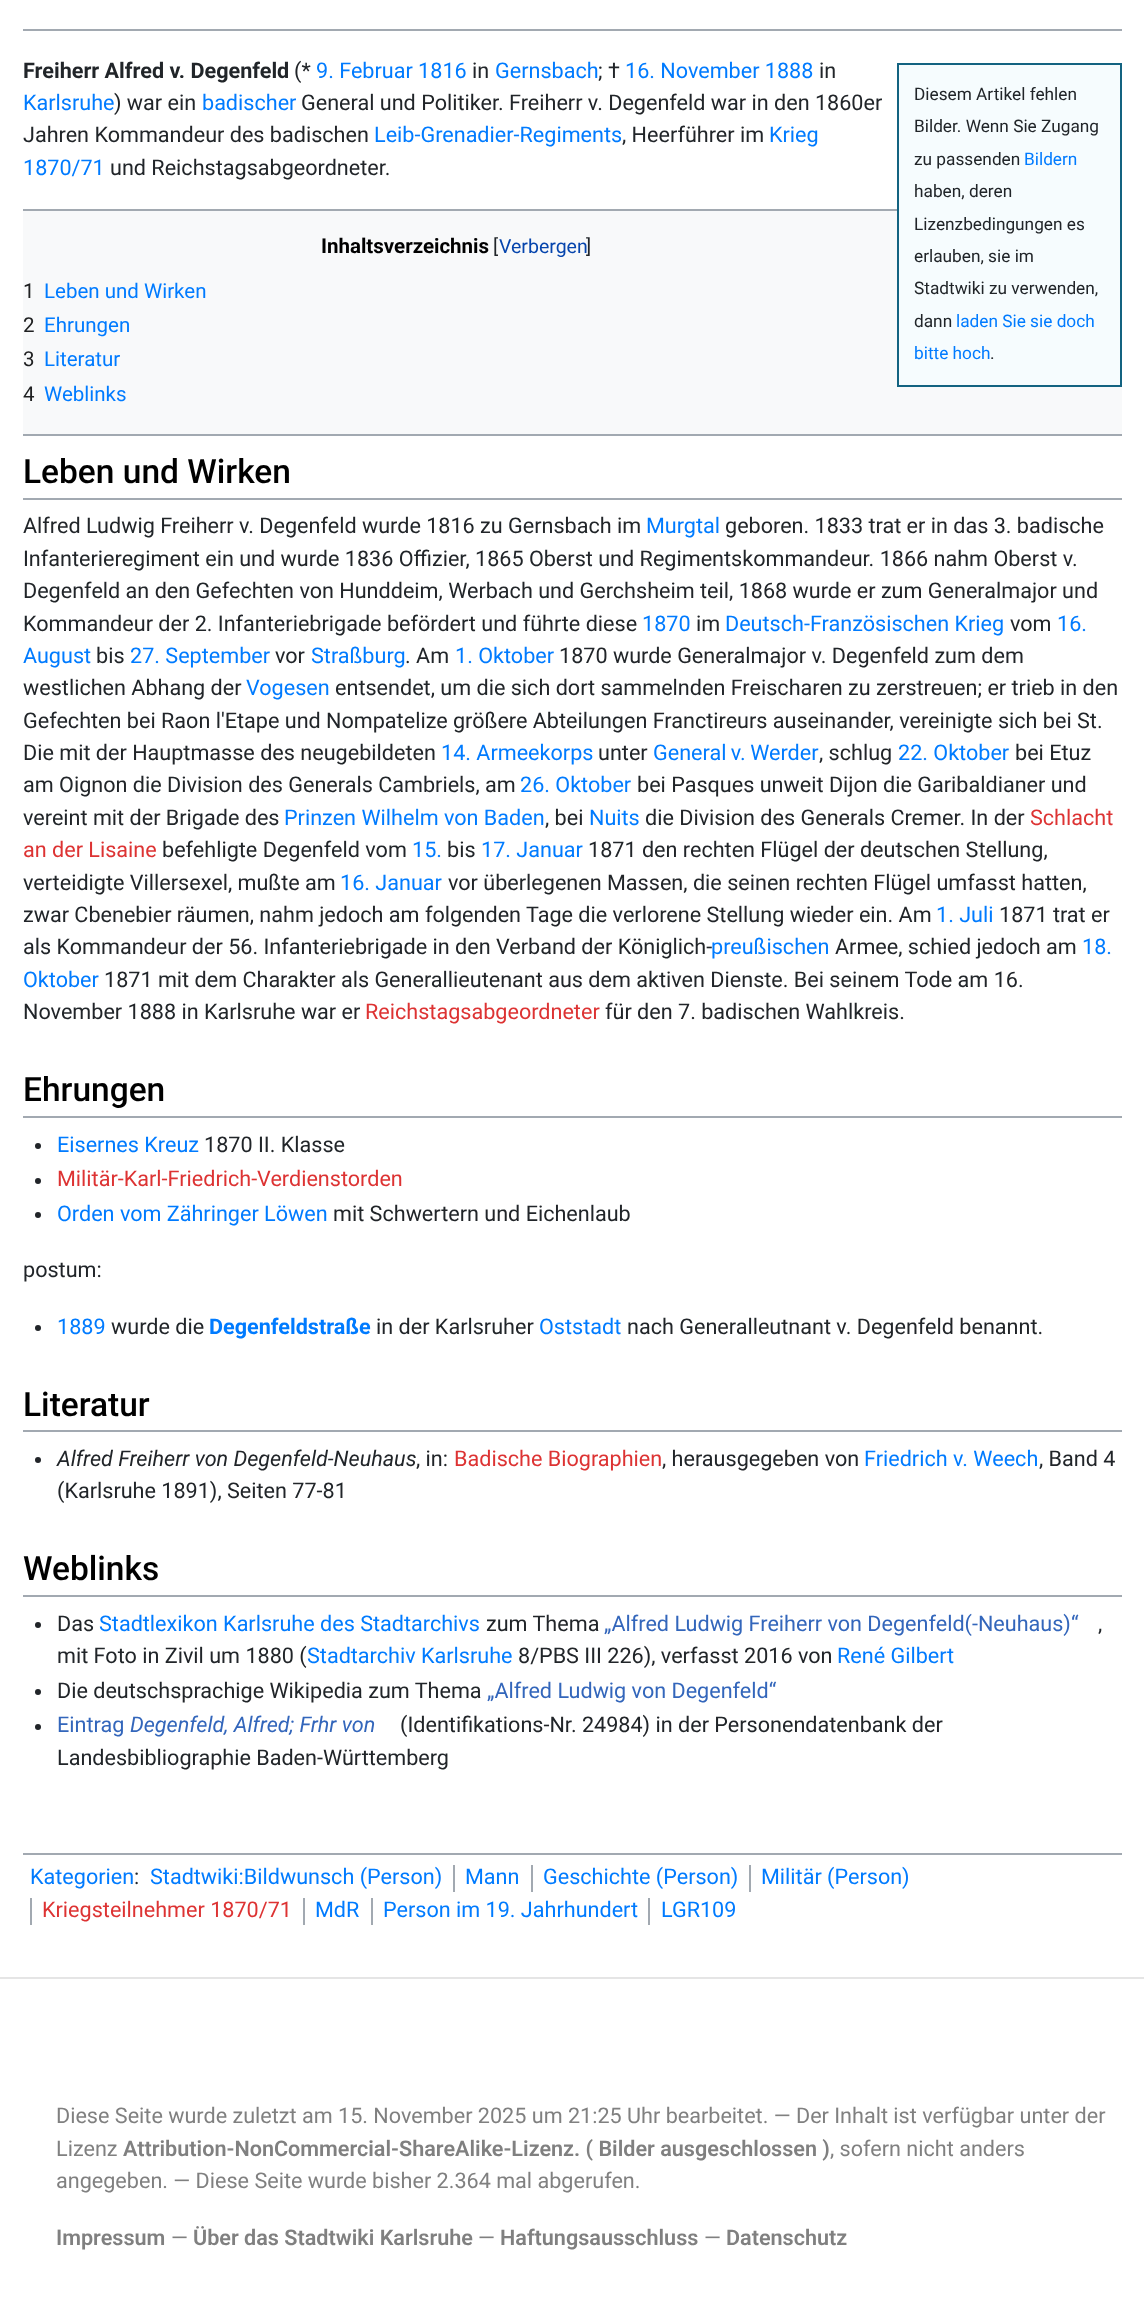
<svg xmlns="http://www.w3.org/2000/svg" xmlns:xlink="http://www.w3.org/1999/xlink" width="1144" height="2299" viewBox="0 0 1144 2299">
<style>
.cls-1{font:bold 21.6px Roboto;fill:#212529}
.cls-2{font:21.6px Roboto;fill:#212529}
.cls-3{font:21.6px Roboto;fill:#007bff}
.cls-4{font:17.25px Roboto;fill:#212529}
.cls-5{font:17.25px Roboto;fill:#007bff}
.cls-6{font:bold 20.5px Roboto;fill:#000000}
.cls-7{font:19.5px Roboto;fill:#212529}
.cls-8{font:19.5px Roboto;fill:#0645ad}
.cls-9{font:20.5px Roboto;fill:#202122}
.cls-10{font:20.5px Roboto;fill:#007bff}
.cls-11{font:500 33.5px Roboto;fill:#000000}
.cls-12{font:21.6px Roboto;fill:#dd3333}
.cls-13{font:bold 21.6px Roboto;fill:#007bff}
.cls-14{font:italic 21.6px Roboto;fill:#212529}
.cls-15{font:21.6px Roboto;fill:#3366bb}
.cls-16{font:italic 21.6px Roboto;fill:#3366bb}
.cls-17{font:21.6px Roboto;fill:#808080}
.cls-18{font:600 21.6px Roboto;fill:#808080}
</style>
<rect width="100%" height="100%" fill="#ffffff"/>
<rect fill="#a2a9b1" x="23" y="29" width="1099" height="2"/>
<rect fill="#f8f9fa" x="23" y="211" width="1099" height="223"/>
<rect fill="#f6fcfe" stroke="#136381" stroke-width="2" x="898" y="64" width="223" height="322"/>
<rect fill="#a2a9b1" x="23" y="209" width="874" height="2"/>
<rect fill="#a2a9b1" x="23" y="434" width="1099" height="2"/>
<rect fill="#a2a9b1" x="23" y="498" width="1099" height="2"/>
<rect fill="#a2a9b1" x="23" y="1116" width="1099" height="2"/>
<circle fill="#212529" cx="38" cy="1146" r="3"/>
<circle fill="#212529" cx="38" cy="1181" r="3"/>
<circle fill="#212529" cx="38" cy="1215" r="3"/>
<circle fill="#212529" cx="38" cy="1328" r="3"/>
<rect fill="#a2a9b1" x="23" y="1430" width="1099" height="2"/>
<circle fill="#212529" cx="38" cy="1460" r="3"/>
<rect fill="#a2a9b1" x="23" y="1595" width="1099" height="2"/>
<circle fill="#212529" cx="38" cy="1625" r="3"/>
<circle fill="#212529" cx="38" cy="1692" r="3"/>
<circle fill="#212529" cx="38" cy="1727" r="3"/>
<rect fill="#a2a9b1" x="23" y="1853" width="1099" height="2"/>
<rect fill="#a2a9b1" x="453" y="1865" width="2" height="27"/>
<rect fill="#a2a9b1" x="531" y="1865" width="2" height="27"/>
<rect fill="#a2a9b1" x="749" y="1865" width="2" height="27"/>
<rect fill="#a2a9b1" x="30" y="1898" width="2" height="27"/>
<rect fill="#a2a9b1" x="303" y="1898" width="2" height="27"/>
<rect fill="#a2a9b1" x="371" y="1898" width="2" height="27"/>
<rect fill="#a2a9b1" x="648" y="1898" width="2" height="27"/>
<rect fill="#e5e5e5" x="0" y="1977" width="1144" height="2"/>
<text class="cls-1" x="23" y="78">Freiherr Alfred v. Degenfeld</text>
<text class="cls-2" x="294" y="78">(*</text>
<text class="cls-3" x="316" y="78">9. Februar 1816</text>
<text class="cls-2" x="472" y="78">in</text>
<text class="cls-3" x="495" y="78">Gernsbach</text>
<text class="cls-2" x="598" y="78">; †</text>
<text class="cls-3" x="625" y="78">16. November 1888</text>
<text class="cls-2" x="819" y="78">in</text>
<text class="cls-3" x="23" y="110">Karlsruhe</text>
<text class="cls-2" x="114" y="110">) war ein</text>
<text class="cls-3" x="202" y="110">badischer</text>
<text class="cls-2" x="301" y="110">General und Politiker. Freiherr v. Degenfeld war in den 1860er</text>
<text class="cls-2" x="23" y="142">Jahren Kommandeur des badischen</text>
<text class="cls-3" x="374" y="142">Leib-Grenadier-Regiments</text>
<text class="cls-2" x="622" y="142">, Heerführer im</text>
<text class="cls-3" x="769" y="142">Krieg</text>
<text class="cls-3" x="23" y="175">1870/71</text>
<text class="cls-2" x="110" y="175">und Reichstagsabgeordneter.</text>
<text class="cls-4"><tspan x="914" y="100">Diesem Artikel fehlen</tspan><tspan x="914" y="132">Bilder. Wenn Sie Zugang</tspan><tspan x="914" y="165">zu passenden</tspan></text>
<text class="cls-5" x="1024" y="165">Bildern</text>
<text class="cls-4"><tspan x="914" y="197">haben, deren</tspan><tspan x="914" y="230">Lizenzbedingungen es</tspan><tspan x="914" y="262">erlauben, sie im</tspan><tspan x="914" y="294">Stadtwiki zu verwenden,</tspan><tspan x="914" y="327">dann</tspan></text>
<text class="cls-5" x="956" y="327">laden Sie sie doch</text>
<text class="cls-5" x="914" y="359">bitte hoch</text>
<text class="cls-4" x="990" y="359">.</text>
<text class="cls-6" x="321" y="253">Inhaltsverzeichnis</text>
<text class="cls-7" x="493" y="253">[</text>
<text class="cls-8" x="499" y="253">Verbergen</text>
<text class="cls-7" x="586" y="253">]</text>
<text class="cls-9" x="23" y="298">1</text>
<text class="cls-10" x="44" y="298">Leben und Wirken</text>
<text class="cls-9" x="23" y="332">2</text>
<text class="cls-10" x="44" y="332">Ehrungen</text>
<text class="cls-9" x="23" y="366">3</text>
<text class="cls-10" x="44" y="366">Literatur</text>
<text class="cls-9" x="23" y="401">4</text>
<text class="cls-10" x="44" y="401">Weblinks</text>
<text class="cls-11" x="23" y="483">Leben und Wirken</text>
<text class="cls-2" x="23" y="533">Alfred Ludwig Freiherr v. Degenfeld wurde 1816 zu Gernsbach im</text>
<text class="cls-3" x="646" y="533">Murgtal</text>
<text class="cls-2" x="725" y="533">geboren. 1833 trat er in das 3. badische</text>
<text class="cls-2"><tspan x="23" y="566">Infanterieregiment ein und wurde 1836 Offizier, 1865 Oberst und Regimentskommandeur. 1866 nahm Oberst v.</tspan><tspan x="23" y="598">Degenfeld an den Gefechten von Hunddeim, Werbach und Gerchsheim teil, 1868 wurde er zum Generalmajor und</tspan><tspan x="23" y="631">Kommandeur der 2. Infanteriebrigade befördert und führte diese</tspan></text>
<text class="cls-3" x="642" y="631">1870</text>
<text class="cls-2" x="696" y="631">im</text>
<text class="cls-3" x="725" y="631">Deutsch-Französischen Krieg</text>
<text class="cls-2" x="1010" y="631">vom</text>
<text class="cls-3" x="1057" y="631">16.</text>
<text class="cls-3" x="23" y="663">August</text>
<text class="cls-2" x="96" y="663">bis</text>
<text class="cls-3" x="130" y="663">27. September</text>
<text class="cls-2" x="275" y="663">vor</text>
<text class="cls-3" x="311" y="663">Straßburg</text>
<text class="cls-2" x="405" y="663">. Am</text>
<text class="cls-3" x="455" y="663">1. Oktober</text>
<text class="cls-2" x="559" y="663">1870 wurde Generalmajor v. Degenfeld zum dem</text>
<text class="cls-2" x="23" y="695">westlichen Abhang der</text>
<text class="cls-3" x="246" y="695">Vogesen</text>
<text class="cls-2" x="335" y="695">entsendet, um die sich dort sammelnden Freischaren zu zerstreuen; er trieb in den</text>
<text class="cls-2"><tspan x="23" y="728">Gefechten bei Raon l'Etape und Nompatelize größere Abteilungen Franctireurs auseinander, vereinigte sich bei St.</tspan><tspan x="23" y="760">Die mit der Hauptmasse des neugebildeten</tspan></text>
<text class="cls-3" x="441" y="760">14. Armeekorps</text>
<text class="cls-2" x="598" y="760">unter</text>
<text class="cls-3" x="653" y="760" word-spacing="-1">General v. Werder</text>
<text class="cls-2" x="819" y="760">, schlug</text>
<text class="cls-3" x="898" y="760">22. Oktober</text>
<text class="cls-2" x="1015" y="760">bei Etuz</text>
<text class="cls-2" x="23" y="792">am Oignon die Division des Generals Cambriels, am</text>
<text class="cls-3" x="520" y="792">26. Oktober</text>
<text class="cls-2" x="637" y="792">bei Pasques unweit Dijon die Garibaldianer und</text>
<text class="cls-2" x="23" y="825">vereint mit der Brigade des</text>
<text class="cls-3" x="284" y="825">Prinzen Wilhelm von Baden</text>
<text class="cls-2" x="545" y="825">, bei</text>
<text class="cls-3" x="589" y="825">Nuits</text>
<text class="cls-2" x="645" y="825">die Division des Generals Cremer. In der</text>
<text class="cls-12" x="1030" y="825">Schlacht</text>
<text class="cls-12" x="23" y="857">an der Lisaine</text>
<text class="cls-2" x="162" y="857">befehligte Degenfeld vom</text>
<text class="cls-3" x="412" y="857">15.</text>
<text class="cls-2" x="447" y="857">bis</text>
<text class="cls-3" x="481" y="857">17. Januar</text>
<text class="cls-2" x="588" y="857">1871 den rechten Flügel der deutschen Stellung,</text>
<text class="cls-2" x="23" y="890">verteidigte Villersexel, mußte am</text>
<text class="cls-3" x="340" y="890">16. Januar</text>
<text class="cls-2" x="448" y="890">vor überlegenen Massen, die seinen rechten Flügel umfasst hatten,</text>
<text class="cls-2" x="23" y="922">zwar Cbenebier räumen, nahm jedoch am folgenden Tage die verlorene Stellung wieder ein. Am</text>
<text class="cls-3" x="936" y="922">1. Juli</text>
<text class="cls-2" x="999" y="922">1871 trat er</text>
<text class="cls-2" x="23" y="954">als Kommandeur der 56. Infanteriebrigade in den Verband der Königlich-</text>
<text class="cls-3" x="711" y="954">preußischen</text>
<text class="cls-2" x="835" y="954">Armee, schied jedoch am</text>
<text class="cls-3" x="1082" y="954">18.</text>
<text class="cls-3" x="23" y="987">Oktober</text>
<text class="cls-2" x="104" y="987">1871 mit dem Charakter als Generallieutenant aus dem aktiven Dienste. Bei seinem Tode am 16.</text>
<text class="cls-2" x="23" y="1019">November 1888 in Karlsruhe war er</text>
<text class="cls-12" x="365" y="1019">Reichstagsabgeordneter</text>
<text class="cls-2" x="605" y="1019">für den 7. badischen Wahlkreis.</text>
<text class="cls-11" x="23" y="1101">Ehrungen</text>
<text class="cls-3" x="57" y="1152">Eisernes Kreuz</text>
<text class="cls-2" x="204" y="1152">1870 II. Klasse</text>
<text class="cls-12" x="57" y="1186">Militär-Karl-Friedrich-Verdienstorden</text>
<text class="cls-3" x="57" y="1221">Orden vom Zähringer Löwen</text>
<text class="cls-2" x="333" y="1221">mit Schwertern und Eichenlaub</text>
<text class="cls-2" x="23" y="1277">postum:</text>
<text class="cls-3" x="57" y="1334">1889</text>
<text class="cls-2" x="111" y="1334">wurde die</text>
<text class="cls-13" x="209" y="1334">Degenfeldstraße</text>
<text class="cls-2" x="376" y="1334">in der Karlsruher</text>
<text class="cls-3" x="539" y="1334">Oststadt</text>
<text class="cls-2" x="627" y="1334">nach Generalleutnant v. Degenfeld benannt.</text>
<text class="cls-11" x="23" y="1416">Literatur</text>
<text class="cls-14" x="57" y="1466">Alfred Freiherr von Degenfeld-Neuhaus</text>
<text class="cls-2" x="416" y="1466">, in:</text>
<text class="cls-12" x="454" y="1466">Badische Biographien</text>
<text class="cls-2" x="662" y="1466">, herausgegeben von</text>
<text class="cls-3" x="864" y="1466">Friedrich v. Weech</text>
<text class="cls-2" x="1039" y="1466">, Band 4</text>
<text class="cls-2" x="57" y="1498">(Karlsruhe 1891), Seiten 77-81</text>
<text class="cls-11" x="23" y="1580">Weblinks</text>
<text class="cls-2" x="57" y="1631">Das</text>
<text class="cls-3" x="99" y="1631">Stadtlexikon Karlsruhe des Stadtarchivs</text>
<text class="cls-2" x="486" y="1631">zum Thema</text>
<text class="cls-15" x="604" y="1631">„Alfred Ludwig Freiherr von Degenfeld(-Neuhaus)“</text>
<text class="cls-2" x="1098" y="1631">,</text>
<text class="cls-2" x="57" y="1663">mit Foto in Zivil um 1880 (</text>
<text class="cls-3" x="307" y="1663">Stadtarchiv Karlsruhe</text>
<text class="cls-2" x="518" y="1663">8/PBS III 226), verfasst 2016 von</text>
<text class="cls-3" x="837" y="1663">René Gilbert</text>
<text class="cls-2" x="57" y="1698">Die deutschsprachige Wikipedia zum Thema</text>
<text class="cls-15" x="487" y="1698">„Alfred Ludwig von Degenfeld“</text>
<text class="cls-15" x="57" y="1732">Eintrag</text>
<text class="cls-16" x="130" y="1732">Degenfeld, Alfred; Frhr von</text>
<text class="cls-2" x="400" y="1732">(Identifikations-Nr. 24984) in der Personendatenbank der</text>
<text class="cls-2" x="57" y="1765">Landesbibliographie Baden-Württemberg</text>
<text class="cls-3" x="150" y="1884">Stadtwiki:Bildwunsch (Person)</text>
<text class="cls-3" x="465" y="1884">Mann</text>
<text class="cls-3" x="543" y="1884">Geschichte (Person)</text>
<text class="cls-3" x="761" y="1884">Militär (Person)</text>
<text class="cls-12" x="42" y="1917">Kriegsteilnehmer 1870/71</text>
<text class="cls-3" x="315" y="1917">MdR</text>
<text class="cls-3" x="383" y="1917">Person im 19. Jahrhundert</text>
<text class="cls-3" x="661" y="1917">LGR109</text>
<text class="cls-3" x="30" y="1884">Kategorien</text>
<text class="cls-2" x="134" y="1884">:</text>
<text class="cls-17"><tspan x="56" y="2123">Diese Seite wurde zuletzt am 15. November 2025 um 21:25 Uhr bearbeitet. ― Der Inhalt ist verfügbar unter der</tspan><tspan x="56" y="2156">Lizenz</tspan></text>
<text class="cls-18" x="123" y="2156">Attribution-NonCommercial-ShareAlike-Lizenz. ( Bilder ausgeschlossen )</text>
<text class="cls-17" x="830" y="2156">, sofern nicht anders</text>
<text class="cls-17" x="56" y="2188">angegeben. ― Diese Seite wurde bisher 2.364 mal abgerufen.</text>
<text class="cls-18" x="56" y="2245">Impressum</text>
<text class="cls-17" x="171" y="2245">―</text>
<text class="cls-18" x="193" y="2245">Über das Stadtwiki Karlsruhe</text>
<text class="cls-17" x="478" y="2245">―</text>
<text class="cls-18" x="500" y="2245">Haftungsausschluss</text>
<text class="cls-17" x="704" y="2245">―</text>
<text class="cls-18" x="726" y="2245">Datenschutz</text>
</svg>
